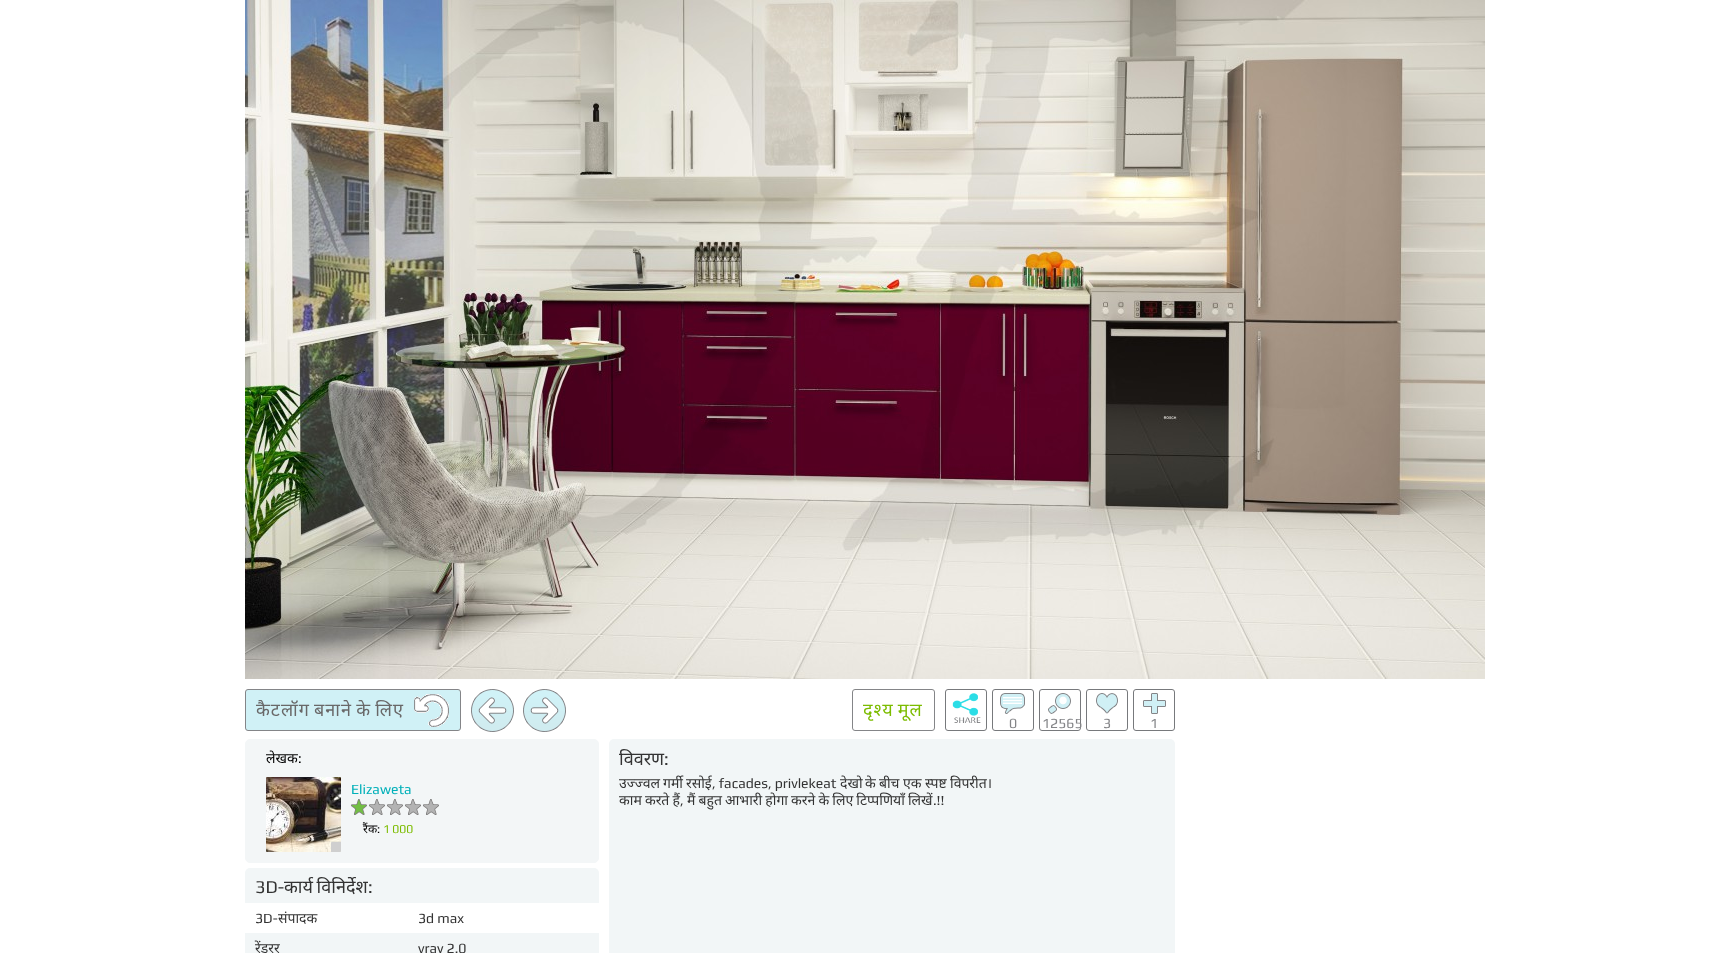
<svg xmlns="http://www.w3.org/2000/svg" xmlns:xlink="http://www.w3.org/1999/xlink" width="1730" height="953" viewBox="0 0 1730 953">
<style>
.cls-1{font:18px Noto Sans;letter-spacing:1px;fill:#696868}
.cls-2{font:18px Noto Sans;letter-spacing:1px;fill:#7cbc00}
.cls-3{font:14px Play;fill:#848588}
.cls-4{font:14px Noto Sans;fill:#000000}
.cls-5{font:14px Play;fill:#000000}
.cls-6{font:14px Play;fill:#00b0b9}
.cls-7{font:12px Noto Sans;fill:#000000}
.cls-8{font:12px Play;fill:#000000}
.cls-9{font:12px Play;fill:#7cbc00}
.cls-10{font:18px Play;fill:#333333}
.cls-11{font:18px Noto Sans;fill:#333333}
.cls-12{font:14px Play;fill:#333333}
.cls-13{font:14px Noto Sans;fill:#333333}
</style>
<rect width="100%" height="100%" fill="#ffffff"/>
<image xlink:href="image0.png" x="245" y="0" width="1240" height="679"/>
<rect fill="#d0f1f6" stroke="#848588" x="245.5" y="689.5" width="215" height="41" rx="2.5"/>
<image xlink:href="image1.png" x="414" y="694" width="35" height="33"/>
<image xlink:href="image2.png" x="471" y="689" width="43" height="43"/>
<image xlink:href="image3.png" x="523" y="689" width="43" height="43"/>
<rect fill="none" stroke="#848588" x="852.5" y="689.5" width="82" height="41" rx="2.5"/>
<rect fill="none" stroke="#77797c" x="945.5" y="689.5" width="41" height="41" rx="2.5"/>
<image xlink:href="image4.png" x="952" y="693" width="29" height="30"/>
<rect fill="none" stroke="#77797c" x="992.5" y="689.5" width="41" height="41" rx="2.5"/>
<image xlink:href="image5.png" x="1000" y="693" width="25" height="21"/>
<rect fill="none" stroke="#77797c" x="1039.5" y="689.5" width="41" height="41" rx="2.5"/>
<image xlink:href="image6.png" x="1048" y="693" width="23" height="21"/>
<rect fill="none" stroke="#77797c" x="1086.5" y="689.5" width="41" height="41" rx="2.5"/>
<image xlink:href="image7.png" x="1096" y="693" width="22" height="21"/>
<rect fill="none" stroke="#77797c" x="1133.5" y="689.5" width="41" height="41" rx="2.5"/>
<image xlink:href="image8.png" x="1143" y="693" width="23" height="21"/>
<rect fill="#f3f6f7" stroke="#f3f6f7" x="245.5" y="739.5" width="353" height="123" rx="4.5"/>
<image xlink:href="image9.png" x="266" y="777" width="75" height="75"/>
<path fill="#cfcfcf" d="M332 842H341V851C341 851.5 340.5 852 340 852H331V843C331 842.5 331.5 842 332 842Z"/>
<image xlink:href="image10.png" x="351" y="799" width="16" height="16"/>
<image xlink:href="image11.png" x="369" y="799" width="16" height="16"/>
<image xlink:href="image11.png" x="387" y="799" width="16" height="16"/>
<image xlink:href="image11.png" x="405" y="799" width="16" height="16"/>
<image xlink:href="image11.png" x="423" y="799" width="16" height="16"/>
<rect fill="#f2f6f7" x="245" y="868" width="354" height="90" rx="5"/>
<rect fill="#ffffff" x="245" y="903" width="354" height="30"/>
<rect fill="#f2f6f7" x="609" y="739" width="566" height="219" rx="5"/>
<text class="cls-1" x="256" y="716" word-spacing="-1.5">कैटलॉग बनाने के लिए</text>
<text class="cls-2" x="863" y="716" word-spacing="-1.5">दृश्य मूल</text>
<text class="cls-3" x="1009" y="728">0</text>
<text class="cls-3" x="1042" y="728">12565</text>
<text class="cls-3" x="1103" y="728">3</text>
<text class="cls-3" x="1150" y="728">1</text>
<text class="cls-4" x="266" y="763">लेखक</text>
<text class="cls-5" x="298" y="763">:</text>
<text class="cls-6" x="351" y="794">Еlizaweta</text>
<text class="cls-7" x="363" y="833">रैंक</text>
<text class="cls-8" x="377" y="833">:</text>
<text class="cls-9" x="383" y="833">1 000</text>
<text class="cls-10" x="255" y="893">3D-</text>
<text class="cls-11" x="284" y="893" word-spacing="-1">कार्य विनिर्देश</text>
<text class="cls-10" x="368" y="893">:</text>
<text class="cls-12" x="255" y="923">3D-</text>
<text class="cls-13" x="278" y="923">संपादक</text>
<text class="cls-12" x="418" y="923">3d max</text>
<text class="cls-13" x="255" y="953">रेंडरर</text>
<text class="cls-12" x="418" y="953">vray 2.0</text>
<text class="cls-11" x="619" y="765">विवरण</text>
<text class="cls-10" x="664" y="765">:</text>
<text class="cls-13" x="619" y="788">उज्ज्वल</text>
<text class="cls-13" x="663" y="788">गर्मी</text>
<text class="cls-13" x="686" y="788">रसोई</text>
<text class="cls-12" x="712" y="788">, facades, privlekeat</text>
<text class="cls-13" x="840" y="788">देखो</text>
<text class="cls-13" x="865" y="788">के</text>
<text class="cls-13" x="879" y="788">बीच</text>
<text class="cls-13" x="903" y="788">एक</text>
<text class="cls-13" x="925" y="788">स्पष्ट</text>
<text class="cls-13" x="950" y="788">विपरीत।</text>
<text class="cls-13" x="619" y="805" word-spacing="-0.5">काम करते हैं</text>
<text class="cls-12" x="680" y="805">,</text>
<text class="cls-13" x="687" y="805" word-spacing="-0.5">मैं बहुत आभारी होगा करने के लिए टिप्पणियाँ लिखें</text>
<text class="cls-12" x="933" y="805">.!!</text>
</svg>
